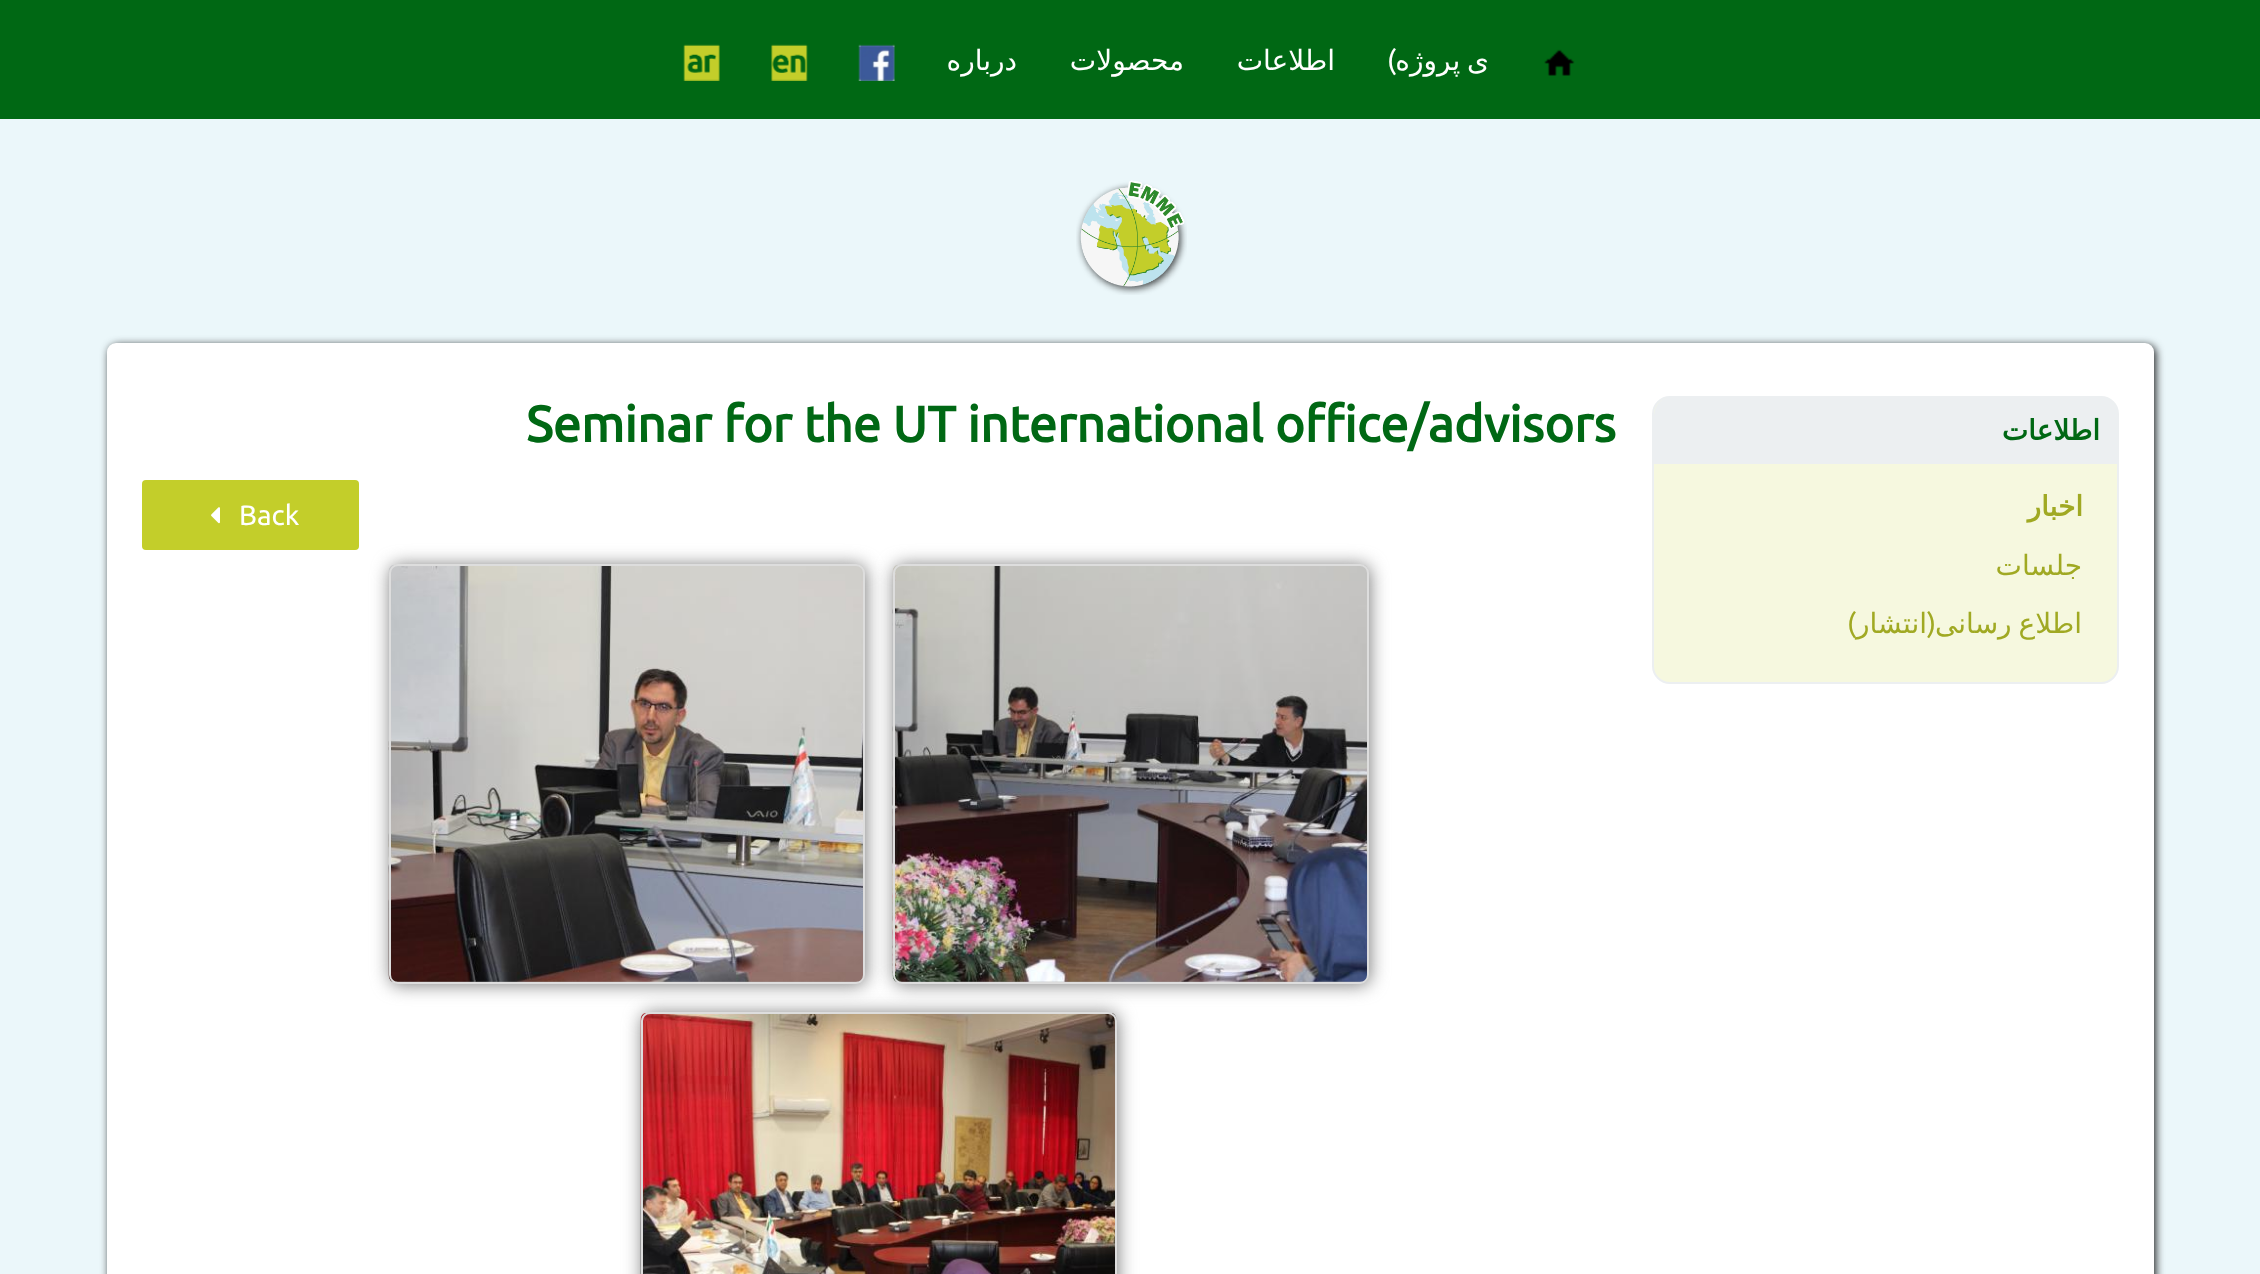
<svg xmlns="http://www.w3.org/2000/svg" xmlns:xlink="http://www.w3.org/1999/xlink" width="2260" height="1274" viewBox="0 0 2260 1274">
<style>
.cls-1{font:28px DejaVu Sans;direction:rtl;fill:#ffffff}
.cls-2{font:28px Ubuntu;direction:rtl;fill:#ffffff}
.cls-3{font:bold 28px DejaVu Sans;direction:rtl;fill:#006814}
.cls-4{font:bold 28px DejaVu Sans;direction:rtl;fill:#a0a923}
.cls-5{font:28px DejaVu Sans;direction:rtl;fill:#a0a923}
.cls-6{font:28px Ubuntu;direction:rtl;fill:#a0a923}
.cls-7{font:bold 50.4px Ubuntu;fill:#006814}
.cls-8{font:28px Ubuntu;fill:#ffffff}
</style>
<rect width="100%" height="100%" fill="#ebf7fa"/>
<rect fill="#006814" x="0" y="0" width="2260" height="119"/>
<image xlink:href="image0.png" x="1544" y="49" width="31" height="27"/>
<image xlink:href="image1.png" x="858" y="44" width="37" height="37"/>
<image xlink:href="image2.png" x="771" y="44" width="37" height="37"/>
<image xlink:href="image3.png" x="683" y="44" width="37" height="37"/>
<image xlink:href="image4.png" x="1076" y="180" width="111" height="115"/>
<rect fill="#212223" filter="blur(4.5px)" x="109" y="345" width="2047" height="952" rx="9"/>
<rect fill="#ffffff" x="107" y="343" width="2047" height="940" rx="9"/>
<rect fill="#f6f8df" stroke="#eceff1" stroke-width="2" x="1653" y="397" width="465" height="286" rx="17"/>
<path fill="#eceff1" d="M1672 397H2100C2110 397 2118 405 2118 415V464H1654V415C1654 405 1662 397 1672 397Z"/>
<rect fill="#c3ce2a" x="142" y="480" width="217" height="70" rx="4"/>
<image xlink:href="image5.png" x="211" y="507" width="9" height="17"/>
<rect fill="#7d7d7d" filter="blur(9px)" x="894" y="565" width="476" height="420" rx="9"/>
<rect fill="#7d7d7d" filter="blur(9px)" x="390" y="565" width="476" height="420" rx="9"/>
<image xlink:href="image6.png" x="892" y="565" width="477" height="417"/>
<rect fill="none" stroke="#dddddd" stroke-width="2" x="894" y="565" width="474" height="418" rx="8"/>
<image xlink:href="image7.png" x="388" y="565" width="477" height="417"/>
<rect fill="none" stroke="#dddddd" stroke-width="2" x="390" y="565" width="474" height="418" rx="8"/>
<rect fill="#7d7d7d" filter="blur(9px)" x="642" y="1013" width="476" height="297" rx="9"/>
<image xlink:href="image8.png" x="640" y="1013" width="477" height="261"/>
<rect fill="none" stroke="#dddddd" stroke-width="2" x="642" y="1013" width="474" height="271" rx="8"/>
<text class="cls-1" x="1489" y="70" word-spacing="-2">ی پروژه</text>
<text class="cls-2" x="1396" y="70">)</text>
<text class="cls-1" x="1335" y="70">اطلاعات</text>
<text class="cls-1" x="1184" y="70">محصولات</text>
<text class="cls-1" x="1017" y="70">درباره</text>
<text class="cls-3" x="2100" y="440">اطلاعات</text>
<text class="cls-4" x="2083" y="516">اخبار</text>
<text class="cls-5" x="2082" y="575">جلسات</text>
<text class="cls-5" x="2082" y="633" word-spacing="-2">اطلاع رسانی</text>
<text class="cls-6" x="1936" y="633">(</text>
<text class="cls-5" x="1927" y="633">انتشار</text>
<text class="cls-6" x="1856" y="633">)</text>
<text class="cls-7" x="526" y="442">Seminar for the UT international office/advisors</text>
<text class="cls-8" x="239" y="525">Back</text>
</svg>
